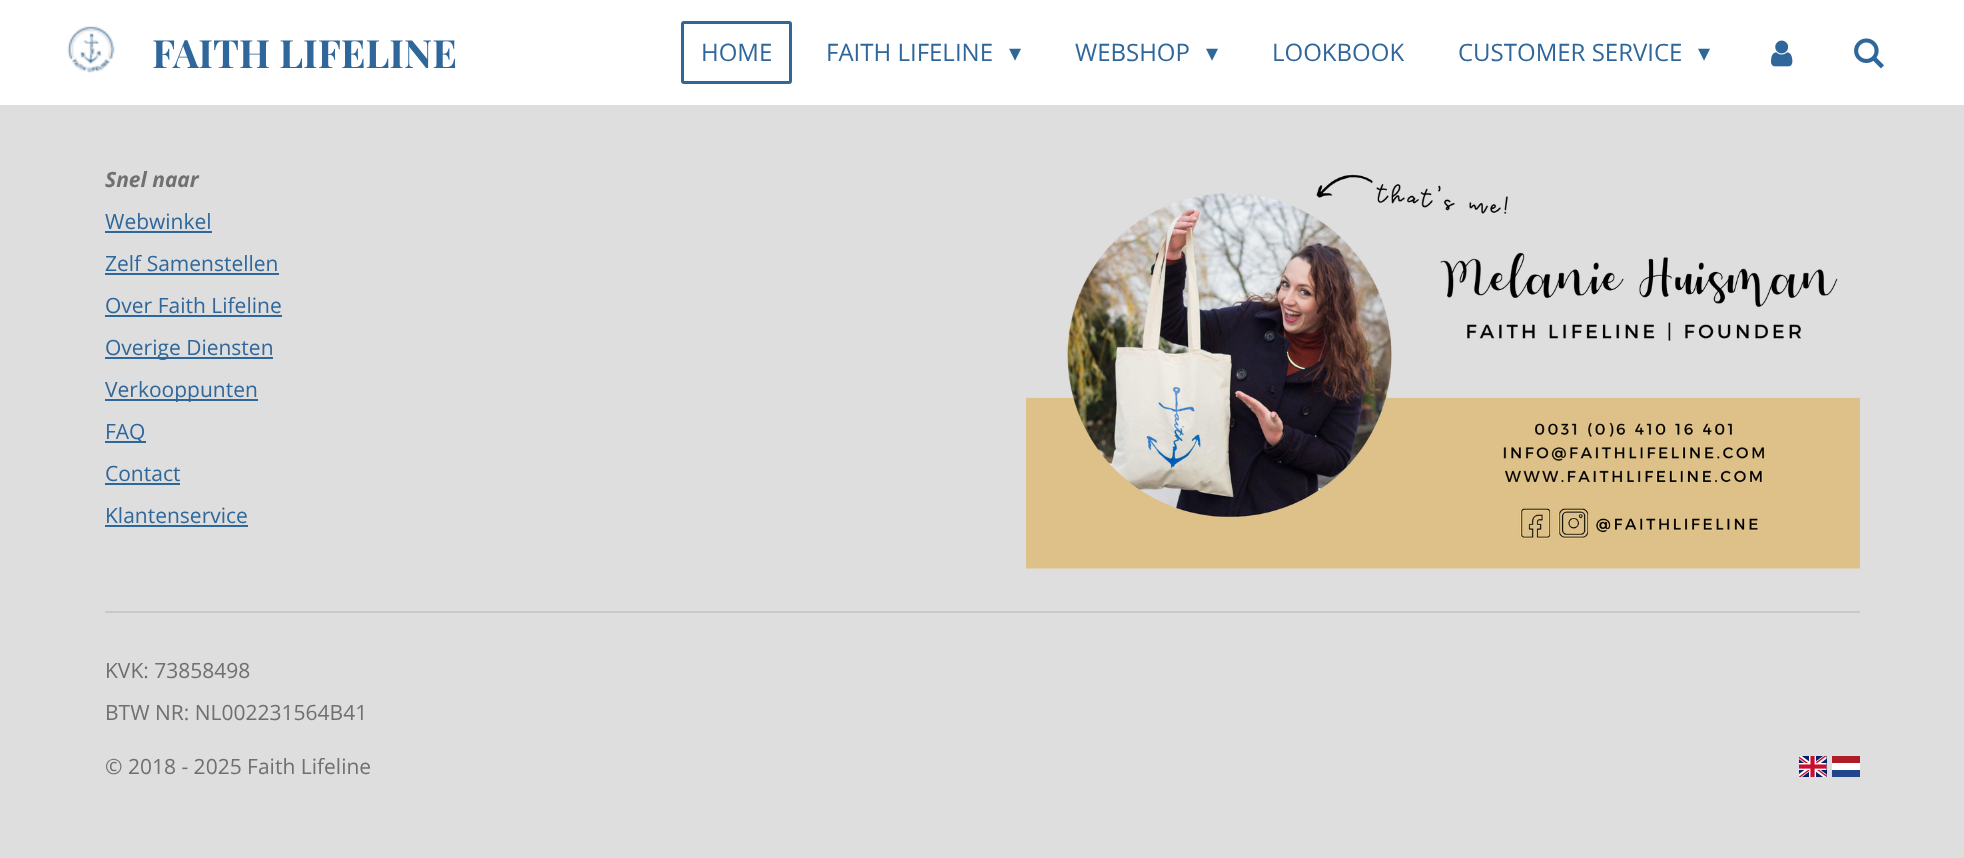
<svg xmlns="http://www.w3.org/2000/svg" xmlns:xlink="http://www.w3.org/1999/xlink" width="1964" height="858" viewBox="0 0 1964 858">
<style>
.cls-1{font:bold 39px Playfair Display;fill:#30679a}
.cls-2{font:24px Open Sans;fill:#30679a}
.cls-3{font:24px DejaVu Sans;fill:#30679a}
.cls-4{font:italic bold 21px Open Sans;fill:#707070}
.cls-5{font:21px Open Sans;fill:#30679a}
.cls-6{font:21px Open Sans;fill:#707070}
</style>
<rect width="100%" height="100%" fill="#dedede"/>
<rect fill="#ffffff" x="0" y="0" width="1964" height="105"/>
<image xlink:href="image0.png" x="67" y="26" width="48" height="47"/>
<rect fill="none" stroke="#30679a" stroke-width="3" x="682.5" y="22.5" width="108" height="60" rx="1.5"/>
<image xlink:href="image1.png" x="1771" y="40" width="22" height="27"/>
<image xlink:href="image2.png" x="1854" y="38" width="30" height="31"/>
<rect fill="#30679a" x="105" y="231" width="107" height="2"/>
<rect fill="#30679a" x="105" y="273" width="174" height="2"/>
<rect fill="#30679a" x="105" y="315" width="177" height="2"/>
<rect fill="#30679a" x="105" y="357" width="168" height="2"/>
<rect fill="#30679a" x="105" y="399" width="153" height="2"/>
<rect fill="#30679a" x="105" y="441" width="41" height="2"/>
<rect fill="#30679a" x="105" y="483" width="75" height="2"/>
<rect fill="#30679a" x="105" y="525" width="143" height="2"/>
<image xlink:href="image3.png" x="1026" y="174" width="834" height="395"/>
<rect fill="#c8c8c8" x="105" y="611" width="1755" height="2"/>
<image xlink:href="image4.png" x="1799" y="756" width="28" height="21"/>
<rect fill="#21468b" x="1832" y="770" width="28" height="7"/>
<rect fill="#ffffff" x="1832" y="763" width="28" height="7"/>
<rect fill="#ae1c28" x="1832" y="756" width="28" height="7"/>
<text class="cls-1" x="152" y="68">FAITH LIFELINE</text>
<text class="cls-2" x="701" y="61">HOME</text>
<text class="cls-2" x="826" y="61">FAITH LIFELINE</text>
<text class="cls-3" x="1009" y="61">▾</text>
<text class="cls-2" x="1075" y="61">WEBSHOP</text>
<text class="cls-3" x="1206" y="61">▾</text>
<text class="cls-2" x="1272" y="61">LOOKBOOK</text>
<text class="cls-2" x="1458" y="61">CUSTOMER SERVICE</text>
<text class="cls-3" x="1698" y="61">▾</text>
<text class="cls-4" x="105" y="187">Snel naar</text>
<text class="cls-5" x="105" y="229">Webwinkel</text>
<text class="cls-5" x="105" y="271">Zelf Samenstellen</text>
<text class="cls-5" x="105" y="313">Over Faith Lifeline</text>
<text class="cls-5" x="105" y="355">Overige Diensten</text>
<text class="cls-5" x="105" y="397">Verkooppunten</text>
<text class="cls-5" x="105" y="439">FAQ</text>
<text class="cls-5" x="105" y="481">Contact</text>
<text class="cls-5" x="105" y="523">Klantenservice</text>
<text class="cls-6" x="105" y="678">KVK: 73858498</text>
<text class="cls-6" x="105" y="720">BTW NR: NL002231564B41</text>
<text class="cls-6" x="105" y="774">© 2018 - 2025 Faith Lifeline</text>
</svg>
